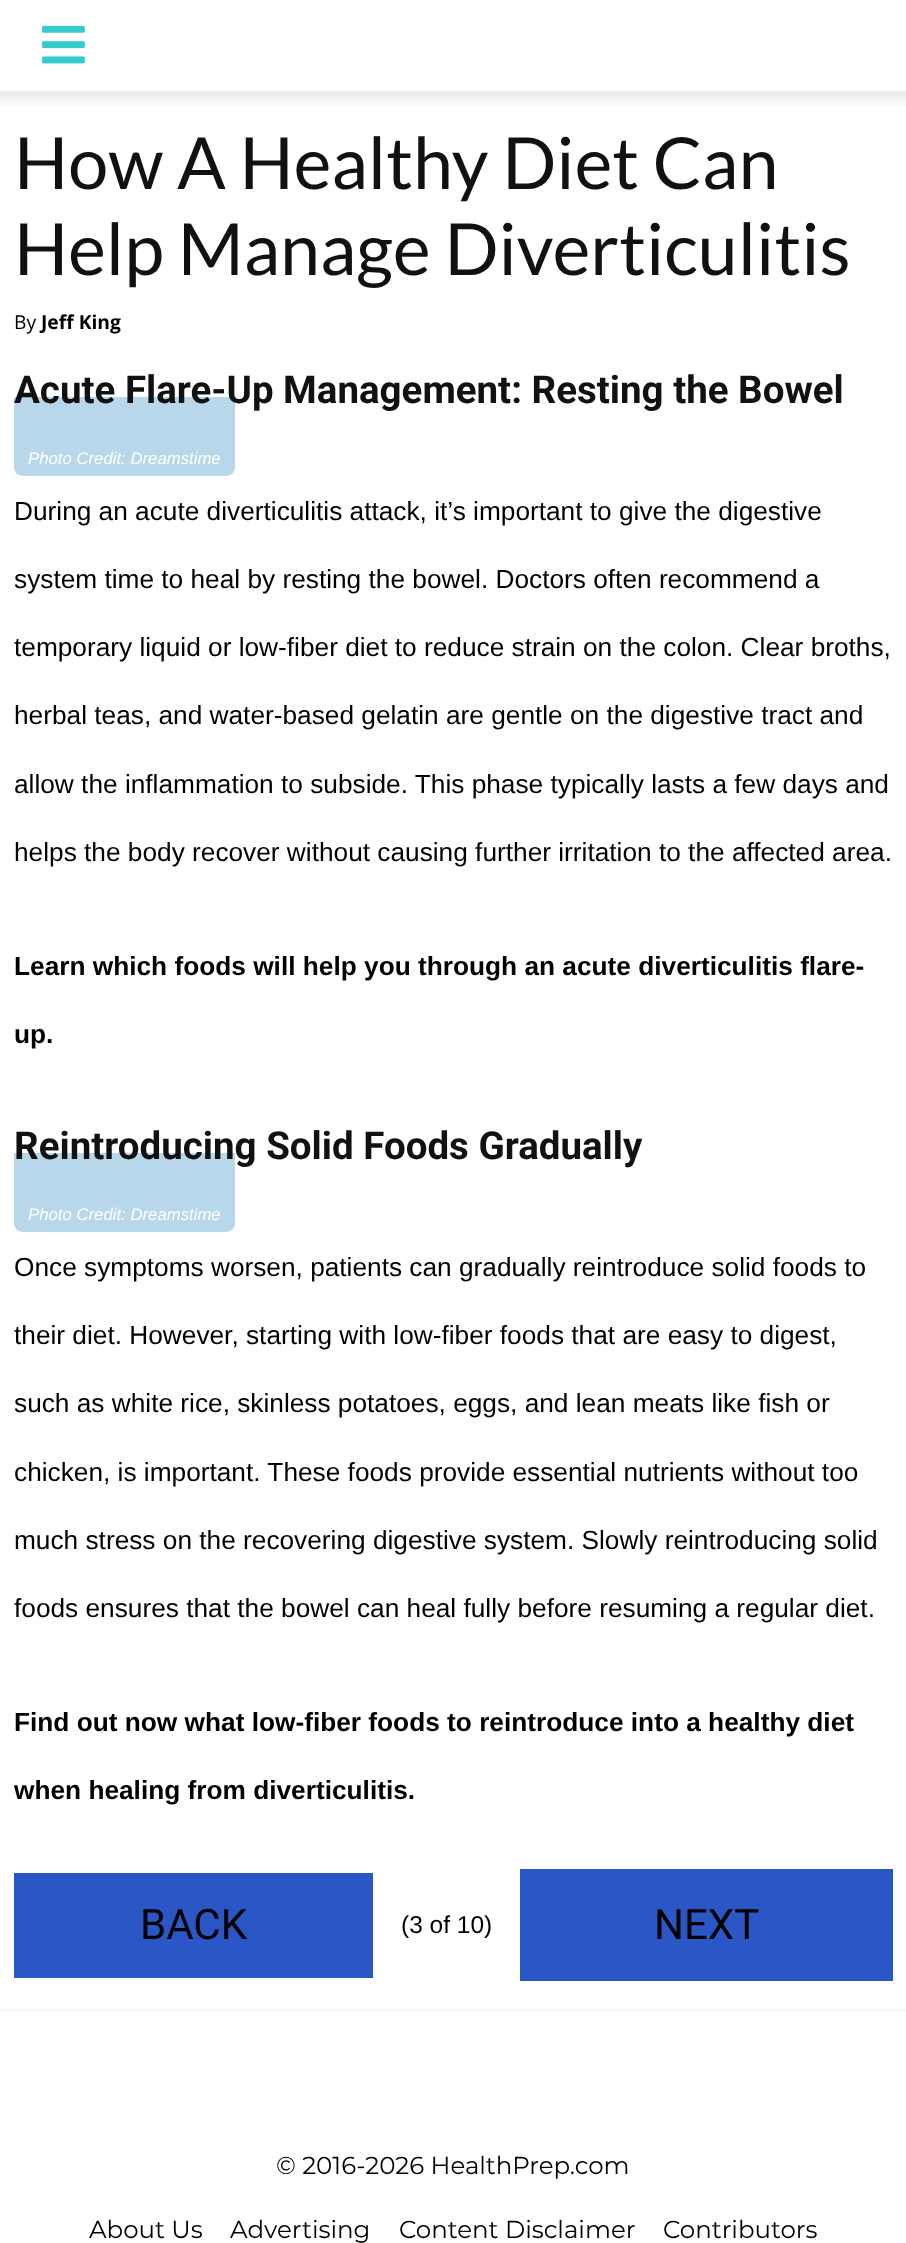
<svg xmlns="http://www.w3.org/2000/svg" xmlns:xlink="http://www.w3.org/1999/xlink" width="906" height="2243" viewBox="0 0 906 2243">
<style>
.cls-1{font:71.75px Lato;fill:#111111}
.cls-2{font:19.25px Open Sans;fill:#000000}
.cls-3{font:bold 19.25px Open Sans;fill:#000000}
.cls-4{font:bold 38.5px Roboto;fill:#111111}
.cls-5{font:italic 16.75px Liberation Sans;fill:#ffffff}
.cls-6{font:26.25px Liberation Sans;fill:#000000}
.cls-7{font:bold 26.25px Liberation Sans;fill:#000000}
.cls-8{font:42px Roboto;fill:#000000}
.cls-9{font:24.5px Liberation Sans;fill:#000000}
.cls-10{font:24.5px Montserrat;fill:#000000}
</style>
<rect width="100%" height="100%" fill="#ffffff"/>
<image xlink:href="image0.png" x="42" y="25" width="43" height="39"/>
<image xlink:href="image1.png" x="0" y="91" width="906" height="15"/>
<path fill="#b9d7ea" d="M14 397H235V467C235 472 231 476 226 476H23C18 476 14 472 14 467Z"/>
<path fill="#b9d7ea" d="M14 1153H235V1223C235 1228 231 1232 226 1232H23C18 1232 14 1228 14 1223Z"/>
<rect fill="#2a56c6" x="14" y="1873" width="359" height="105"/>
<rect fill="#2a56c6" x="520" y="1869" width="373" height="112"/>
<rect fill="#f3f6f9" x="0" y="2009" width="906" height="2"/>
<text class="cls-1"><tspan x="14" y="189">How A Healthy Diet Can</tspan><tspan x="14" y="275">Help Manage Diverticulitis</tspan></text>
<text class="cls-2" x="14" y="329">By</text>
<text class="cls-3" x="41" y="329">Jeff King</text>
<text class="cls-4" x="14" y="403">Acute Flare-Up Management: Resting the Bowel</text>
<text class="cls-5" x="28" y="464">Photo Credit: Dreamstime</text>
<text class="cls-6" x="14" y="520">During an acute diverticulitis attack, it’s important to give the digestive</text>
<text class="cls-6" x="14" y="588">system time to heal by resting the bowel. Doctors often recommend a</text>
<text class="cls-6" x="14" y="656">temporary liquid or low-fiber diet to reduce strain on the colon. Clear broths,</text>
<text class="cls-6" x="14" y="724">herbal teas, and water-based gelatin are gentle on the digestive tract and</text>
<text class="cls-6" x="14" y="793">allow the inflammation to subside. This phase typically lasts a few days and</text>
<text class="cls-6" x="14" y="861">helps the body recover without causing further irritation to the affected area.</text>
<text class="cls-7" x="14" y="975">Learn which foods will help you through an acute diverticulitis flare-</text>
<text class="cls-7" x="14" y="1043">up.</text>
<text class="cls-4" x="14" y="1159">Reintroducing Solid Foods Gradually</text>
<text class="cls-5" x="28" y="1220">Photo Credit: Dreamstime</text>
<text class="cls-6" x="14" y="1276">Once symptoms worsen, patients can gradually reintroduce solid foods to</text>
<text class="cls-6" x="14" y="1344">their diet. However, starting with low-fiber foods that are easy to digest,</text>
<text class="cls-6" x="14" y="1412">such as white rice, skinless potatoes, eggs, and lean meats like fish or</text>
<text class="cls-6" x="14" y="1481">chicken, is important. These foods provide essential nutrients without too</text>
<text class="cls-6" x="14" y="1549">much stress on the recovering digestive system. Slowly reintroducing solid</text>
<text class="cls-6" x="14" y="1617">foods ensures that the bowel can heal fully before resuming a regular diet.</text>
<text class="cls-7" x="14" y="1731">Find out now what low-fiber foods to reintroduce into a healthy diet</text>
<text class="cls-7" x="14" y="1799">when healing from diverticulitis.</text>
<text class="cls-8" x="140" y="1939">BACK</text>
<text class="cls-9" x="401" y="1933">(3 of 10)</text>
<text class="cls-8" x="654" y="1939">NEXT</text>
<text class="cls-10" x="276" y="2174">© 2016-2026 HealthPrep.com</text>
<text class="cls-10" x="89" y="2238">About Us</text>
<text class="cls-10" x="230" y="2238">Advertising</text>
<text class="cls-10" x="399" y="2238">Content Disclaimer</text>
<text class="cls-10" x="663" y="2238">Contributors</text>
</svg>
